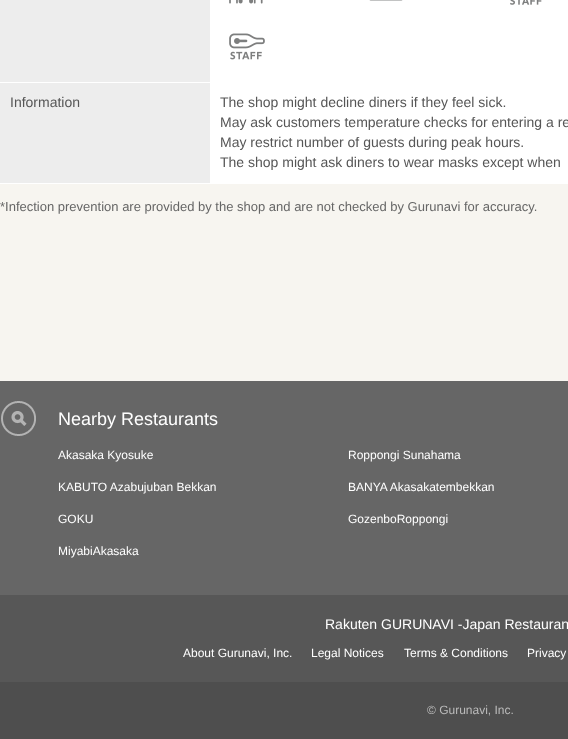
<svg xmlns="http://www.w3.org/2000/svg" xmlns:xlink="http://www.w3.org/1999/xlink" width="568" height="739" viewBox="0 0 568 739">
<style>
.cls-1{font:14px Liberation Sans;fill:#565656}
.cls-2{font:13px Liberation Sans;fill:#666666}
.cls-3{font:18px Liberation Sans;fill:#ffffff}
.cls-4{font:12px Liberation Sans;fill:#ffffff}
.cls-5{font:14px Liberation Sans;fill:#ffffff}
.cls-6{font:12px Liberation Sans;fill:#bbbbbb}
</style>
<rect width="100%" height="100%" fill="#f7f5f0"/>
<rect fill="#ededed" x="0" y="0" width="210" height="82"/>
<rect fill="#ffffff" x="210" y="0" width="358" height="184"/>
<image xlink:href="image0.png" x="229" y="0" width="34" height="4"/>
<image xlink:href="image1.png" x="369" y="0" width="34" height="1"/>
<image xlink:href="image2.png" x="510" y="0" width="32" height="5"/>
<image xlink:href="image3.png" x="229" y="33" width="36" height="27"/>
<rect fill="#ededed" x="0" y="83" width="210" height="100"/>
<rect fill="#ffffff" x="0" y="82" width="211" height="1"/>
<rect fill="#ffffff" x="0" y="183" width="211" height="1"/>
<rect fill="#666666" x="0" y="381" width="568" height="214"/>
<image xlink:href="image4.png" x="1" y="401" width="35" height="35"/>
<rect fill="#575757" x="0" y="595" width="568" height="87"/>
<rect fill="#4e4e4e" x="0" y="682" width="568" height="57"/>
<text class="cls-1" x="10" y="107">Information</text>
<text class="cls-1"><tspan x="220" y="107">The shop might decline diners if they feel sick.</tspan><tspan x="220" y="127">May ask customers temperature checks for entering a re</tspan><tspan x="220" y="147">May restrict number of guests during peak hours.</tspan><tspan x="220" y="167">The shop might ask diners to wear masks except when</tspan></text>
<text class="cls-2" x="0" y="211">*Infection prevention are provided by the shop and are not checked by Gurunavi for accuracy.</text>
<text class="cls-3" x="58" y="425">Nearby Restaurants</text>
<text class="cls-4" x="58" y="459">Akasaka Kyosuke</text>
<text class="cls-4" x="348" y="459">Roppongi Sunahama</text>
<text class="cls-4" x="58" y="491">KABUTO Azabujuban Bekkan</text>
<text class="cls-4" x="348" y="491">BANYA Akasakatembekkan</text>
<text class="cls-4" x="58" y="523">GOKU</text>
<text class="cls-4" x="348" y="523">GozenboRoppongi</text>
<text class="cls-4" x="58" y="555">MiyabiAkasaka</text>
<text class="cls-5" x="325" y="629">Rakuten GURUNAVI -Japan Restauran</text>
<text class="cls-4" x="183" y="657">About Gurunavi, Inc.</text>
<text class="cls-4" x="311" y="657">Legal Notices</text>
<text class="cls-4" x="404" y="657">Terms &amp; Conditions</text>
<text class="cls-4" x="527" y="657">Privacy</text>
<text class="cls-6" x="427" y="714">© Gurunavi, Inc.</text>
</svg>
